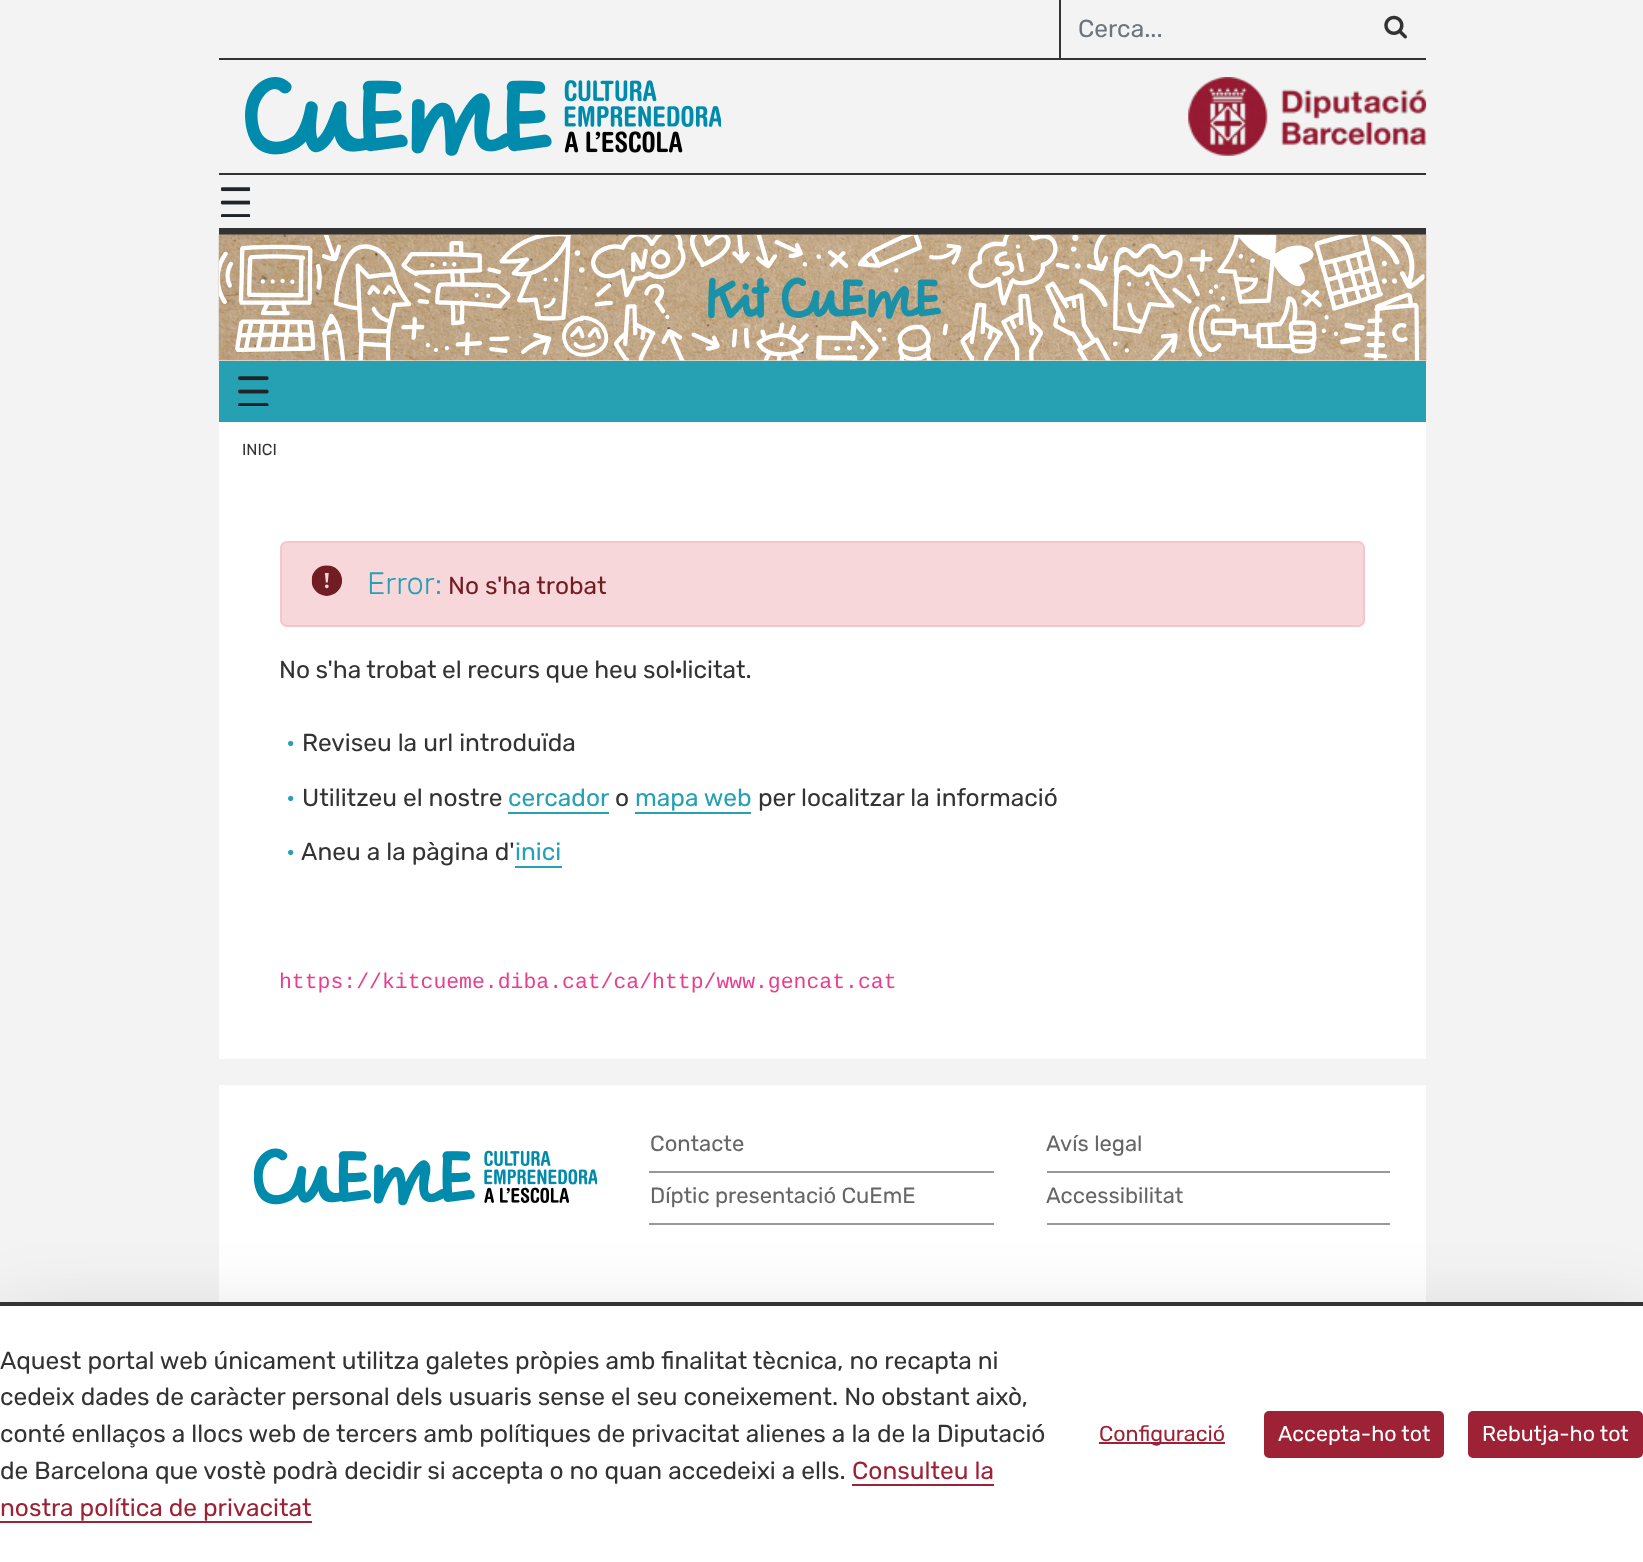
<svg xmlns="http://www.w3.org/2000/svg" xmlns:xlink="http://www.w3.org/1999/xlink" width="1643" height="1562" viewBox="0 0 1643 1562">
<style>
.cls-1{font:24.5px Rubik;fill:#6c757d}
.cls-2{font:16px Rubik;fill:#333333}
.cls-3{font:300 31px Rubik;fill:#26a1b4}
.cls-4{font:24.5px Rubik;fill:#721c24}
.cls-5{font:24.5px Rubik;fill:#333333}
.cls-6{font:24.5px Rubik;fill:#26a1b4}
.cls-7{font:21.45px Liberation Mono;fill:#e83e8c}
.cls-8{font:22px Rubik;fill:#666666}
.cls-9{font:24.5px Rubik;fill:#9d2235}
.cls-10{font:21.45px Rubik;fill:#9d2235}
.cls-11{font:21.45px Rubik;fill:#ffffff}
</style>
<rect width="100%" height="100%" fill="#f3f3f4"/>
<rect fill="#333333" x="219" y="58" width="1207" height="2"/>
<rect fill="#333333" x="1059" y="0" width="2" height="58"/>
<image xlink:href="image0.png" x="1384" y="15" width="23" height="24"/>
<image xlink:href="image1.png" x="245" y="77" width="476" height="79"/>
<image xlink:href="image2.png" x="1188" y="77" width="239" height="79"/>
<rect fill="#333333" x="219" y="173" width="1207" height="2"/>
<rect fill="#333333" x="219" y="228" width="1207" height="7"/>
<image xlink:href="image3.png" x="221" y="187" width="29" height="30"/>
<rect fill="#ffffff" x="219" y="360" width="1207" height="699"/>
<image xlink:href="image4.png" x="218" y="234" width="1209" height="127"/>
<image xlink:href="image5.png" x="219" y="235" width="1206" height="126"/>
<rect fill="#26a1b4" x="219" y="361" width="1207" height="61"/>
<image xlink:href="image6.png" x="238" y="376" width="31" height="30"/>
<rect fill="#f8d7da" stroke="#f5c6cb" stroke-width="2" x="281" y="542" width="1083" height="84" rx="6"/>
<image xlink:href="image7.png" x="311" y="565" width="31" height="31"/>
<rect fill="#26a1b4" x="508" y="812" width="101" height="2"/>
<rect fill="#26a1b4" x="635" y="812" width="116" height="2"/>
<rect fill="#26a1b4" x="515" y="866" width="47" height="2"/>
<rect fill="#ffffff" x="219" y="1085" width="1207" height="217"/>
<image xlink:href="image8.png" x="254" y="1148" width="343" height="58"/>
<rect fill="#999999" x="649" y="1171" width="345" height="2"/>
<rect fill="#999999" x="649" y="1223" width="345" height="2"/>
<rect fill="#999999" x="1047" y="1171" width="343" height="2"/>
<rect fill="#999999" x="1047" y="1223" width="343" height="2"/>
<rect fill="#000000" fill-opacity="0.18" filter="blur(42px)" x="0" y="1330" width="1643" height="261"/>
<rect fill="#ffffff" x="0" y="1306" width="1643" height="256"/>
<rect fill="#333333" x="0" y="1302" width="1643" height="4"/>
<rect fill="#9d2235" x="852" y="1484" width="142" height="2"/>
<rect fill="#9d2235" x="0" y="1521" width="312" height="2"/>
<rect fill="#9d2235" x="1099" y="1442" width="126" height="2"/>
<rect fill="#9d2235" stroke="#9d2235" stroke-width="2" x="1265" y="1412" width="178" height="45" rx="4"/>
<rect fill="#9d2235" stroke="#9d2235" stroke-width="2" x="1469" y="1412" width="173" height="45" rx="4"/>
<text class="cls-1" x="1078" y="37">Cerca...</text>
<text class="cls-2" x="242" y="455">INICI</text>
<text class="cls-3" x="367" y="594">Error:</text>
<text class="cls-4" x="448" y="594">No s'ha trobat</text>
<text class="cls-5" x="279" y="678" word-spacing="-0.5">No s'ha trobat el recurs que heu sol·licitat.</text>
<text class="cls-6" x="286" y="751">•</text>
<text class="cls-5" x="302" y="751">Reviseu la url introduïda</text>
<text class="cls-6" x="286" y="806">•</text>
<text class="cls-5" x="302" y="806">Utilitzeu el nostre</text>
<text class="cls-6" x="508" y="806">cercador</text>
<text class="cls-5" x="615" y="806">o</text>
<text class="cls-6" x="635" y="806">mapa web</text>
<text class="cls-5" x="758" y="806">per localitzar la informació</text>
<text class="cls-6" x="286" y="860">•</text>
<text class="cls-5" x="301" y="860">Aneu a la pàgina d'</text>
<text class="cls-6" x="515" y="860">inici</text>
<text class="cls-7" x="279" y="988">https://kitcueme.diba.cat/ca/http/www.gencat.cat</text>
<text class="cls-8" x="650" y="1151">Contacte</text>
<text class="cls-8" x="650" y="1203">Díptic presentació CuEmE</text>
<text class="cls-8" x="1046" y="1151">Avís legal</text>
<text class="cls-8" x="1046" y="1203">Accessibilitat</text>
<text class="cls-5"><tspan x="0" y="1369">Aquest portal web únicament utilitza galetes pròpies amb finalitat tècnica, no recapta ni</tspan><tspan x="0" y="1405">cedeix dades de caràcter personal dels usuaris sense el seu coneixement. No obstant això,</tspan><tspan x="0" y="1442">conté enllaços a llocs web de tercers amb polítiques de privacitat alienes a la de la Diputació</tspan><tspan x="0" y="1479">de Barcelona que vostè podrà decidir si accepta o no quan accedeixi a ells.</tspan></text>
<text class="cls-9" x="852" y="1479">Consulteu la</text>
<text class="cls-9" x="0" y="1516">nostra política de privacitat</text>
<text class="cls-10" x="1099" y="1441">Configuració</text>
<text class="cls-11" x="1278" y="1441">Accepta-ho tot</text>
<text class="cls-11" x="1482" y="1441">Rebutja-ho tot</text>
</svg>
